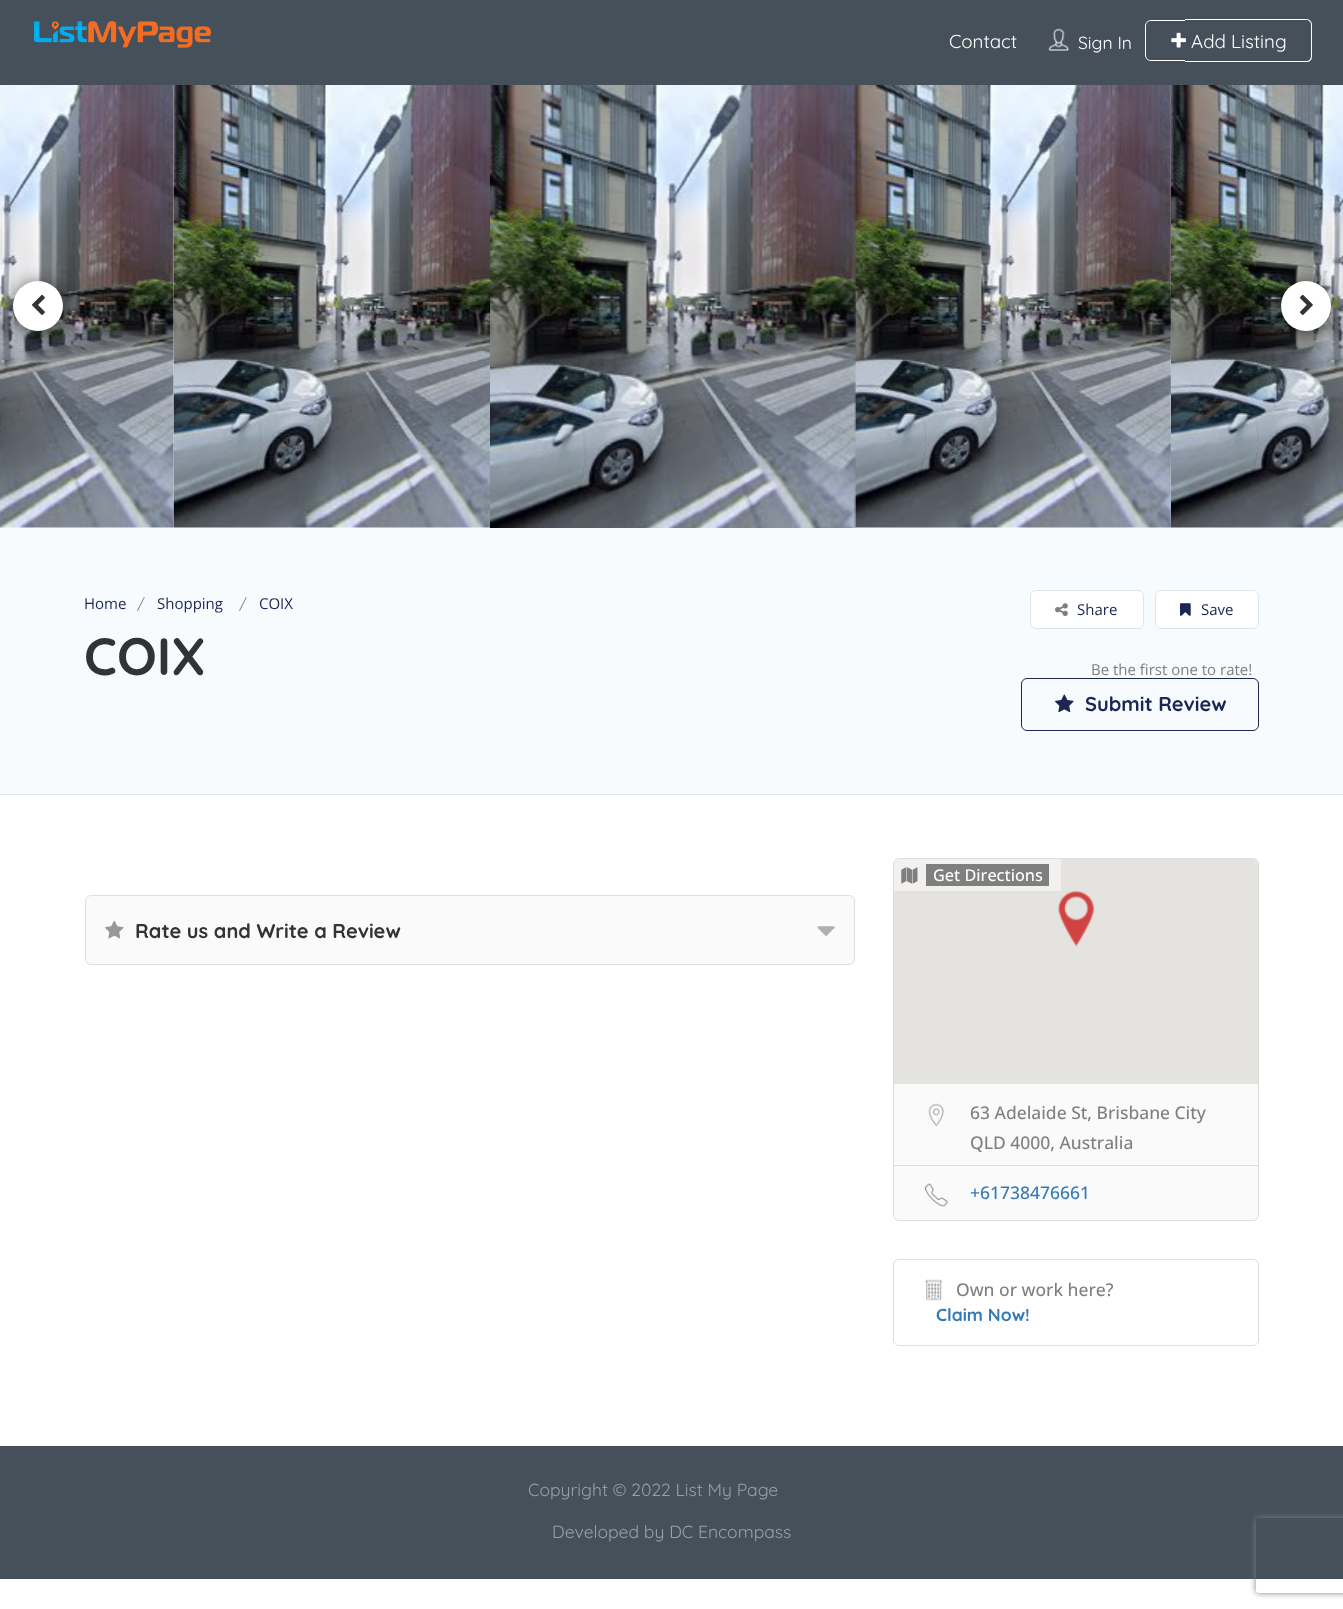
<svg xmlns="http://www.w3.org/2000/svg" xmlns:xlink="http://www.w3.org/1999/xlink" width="1343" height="1609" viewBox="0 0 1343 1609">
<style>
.cls-1{font:18.75px Quicksand;fill:#ffffff}
.cls-2{font:17.5px Quicksand;fill:#ffffff}
.cls-3{font:15px Open Sans;fill:#1c2652}
.cls-4{font:15px Quicksand;fill:#7f7f7f}
.cls-5{font:bold 52.5px Quicksand;fill:#333333}
.cls-6{font:15px Open Sans;fill:#7f7f7f}
.cls-7{font:bold 20px Quicksand;fill:#1c2652}
.cls-8{font:bold 20px Quicksand;fill:#333333}
.cls-9{font:500 16.25px Open Sans;fill:#ffffff}
.cls-10{font:500 17.5px Open Sans;fill:#7f7f7f}
.cls-11{font:500 17.5px Open Sans;fill:#337ab7}
.cls-12{font:bold 17.5px Quicksand;fill:#337ab7}
.cls-13{font:17.5px Quicksand;fill:#96a0a9}
</style>
<defs>
<clipPath id="clip1"><path d="M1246 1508H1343V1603H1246ZM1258.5 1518H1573.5C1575 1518 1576 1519 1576 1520.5V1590.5C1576 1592 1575 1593 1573.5 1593H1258.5C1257 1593 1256 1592 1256 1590.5V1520.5C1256 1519 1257 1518 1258.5 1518Z" clip-rule="evenodd"/></clipPath>
</defs>
<rect width="100%" height="100%" fill="#ffffff"/>
<rect fill="#45505b" x="0" y="0" width="1343" height="85"/>
<image xlink:href="image0.png" x="33" y="21" width="178" height="27"/>
<image xlink:href="image1.png" x="1048" y="28" width="21" height="23"/>
<path fill="#ffffff" fill-rule="evenodd" d="M1151 20H1185V61H1151C1148 61 1145 58 1145 55V26C1145 23 1148 20 1151 20ZM1151 21H1185V60H1151C1148 60 1146 58 1146 55V26C1146 23 1148 21 1151 21Z"/>
<path fill="#ffffff" fill-rule="evenodd" d="M1185 19H1306C1310 19 1312 22 1312 25V56C1312 60 1310 62 1306 62H1185ZM1185 20H1306C1309 20 1311 22 1311 25V56C1311 59 1309 61 1306 61H1185Z"/>
<image xlink:href="image2.png" x="1171" y="32" width="15" height="16"/>
<image xlink:href="image3.png" x="0" y="85" width="174" height="443"/>
<image xlink:href="image4.png" x="173" y="85" width="317" height="443"/>
<image xlink:href="image6.png" x="854" y="85" width="318" height="443"/>
<image xlink:href="image5.png" x="490" y="85" width="366" height="443"/>
<image xlink:href="image7.png" x="1171" y="85" width="172" height="443"/>
<rect fill="#000000" fill-opacity="0.66" filter="blur(9px)" x="13" y="283" width="50" height="50" rx="25"/>
<circle fill="#ffffff" cx="38" cy="306" r="25"/>
<image xlink:href="image8.png" x="32" y="294" width="13" height="21"/>
<rect fill="#000000" fill-opacity="0.66" filter="blur(9px)" x="1281" y="283" width="50" height="50" rx="25"/>
<circle fill="#ffffff" cx="1306" cy="306" r="25"/>
<image xlink:href="image9.png" x="1299" y="294" width="14" height="21"/>
<rect fill="#f7fbfe" x="0" y="528" width="1343" height="266"/>
<rect fill="#dbe7ef" x="0" y="794" width="1343" height="1"/>
<rect fill="#ffffff" stroke="#dbe7ef" x="1030.5" y="590.5" width="113" height="38" rx="5.5"/>
<image xlink:href="image10.png" x="1055" y="603" width="13" height="13"/>
<rect fill="#ffffff" stroke="#dbe7ef" x="1155.5" y="590.5" width="103" height="38" rx="5.5"/>
<image xlink:href="image11.png" x="1180" y="603" width="11" height="13"/>
<rect fill="none" stroke="#1c2652" x="1021.5" y="678.5" width="237" height="52" rx="5.5"/>
<image xlink:href="image12.png" x="1055" y="694" width="19" height="19"/>
<rect fill="#fafafa" stroke="#dedede" x="85.5" y="895.5" width="769" height="69" rx="5.5"/>
<image xlink:href="image13.png" x="105" y="920" width="19" height="19"/>
<image xlink:href="image14.png" x="817" y="926" width="18" height="10"/>
<rect fill="#fafafa" stroke="#dedede" x="893.5" y="858.5" width="365" height="362" rx="5.5"/>
<path fill="#e5e3df" d="M899 859H1253C1256 859 1258 861 1258 864V1084H894V864C894 861 896 859 899 859Z"/>
<image xlink:href="image15.png" x="1058" y="891" width="37" height="56"/>
<path fill="#ffffff" fill-opacity="0.5" d="M899 859H1061V891H894V864C894 861 896 859 899 859Z"/>
<image xlink:href="image16.png" x="901" y="867" width="17" height="17"/>
<rect fill="#7f7f7f" x="926" y="864" width="123" height="22"/>
<rect fill="#dedede" x="894" y="1165" width="364" height="1"/>
<image xlink:href="image17.png" x="928" y="1103" width="16" height="24"/>
<image xlink:href="image18.png" x="925" y="1183" width="23" height="24"/>
<rect fill="none" stroke="#dedede" x="893.5" y="1259.5" width="365" height="86" rx="5.5"/>
<image xlink:href="image19.png" x="925" y="1279" width="18" height="22"/>
<rect fill="#45505b" x="0" y="1446" width="1343" height="133"/>
<g clip-path="url(#clip1)">
<rect fill="#808080" filter="blur(3px)" x="1256" y="1518" width="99" height="75" rx="2.5"/>
</g>
<text class="cls-1" x="949" y="48">Contact</text>
<text class="cls-2" x="1078" y="49">Sign In</text>
<text class="cls-1" x="1191" y="48">Add Listing</text>
<text class="cls-3" x="84" y="609">Home</text>
<text class="cls-4" x="137" y="609">/</text>
<text class="cls-3" x="157" y="609">Shopping</text>
<text class="cls-4" x="239" y="609">/</text>
<text class="cls-3" x="259" y="609">COIX</text>
<text class="cls-5" x="84" y="675">COIX</text>
<text class="cls-3" x="1077" y="615">Share</text>
<text class="cls-3" x="1201" y="615">Save</text>
<text class="cls-6" x="1091" y="675">Be the first one to rate!</text>
<text class="cls-7" x="1085" y="711">Submit Review</text>
<text class="cls-8" x="135" y="938">Rate us and Write a Review</text>
<text class="cls-9" x="933" y="881">Get Directions</text>
<text class="cls-10"><tspan x="970" y="1119">63 Adelaide St, Brisbane City</tspan><tspan x="970" y="1149">QLD 4000, Australia</tspan></text>
<text class="cls-11" x="970" y="1199">+61738476661</text>
<text class="cls-10" x="956" y="1296">Own or work here?</text>
<text class="cls-12" x="936" y="1321">Claim Now!</text>
<text class="cls-13" x="528" y="1496">Copyright © 2022 List My Page</text>
<text class="cls-13" x="552" y="1538">Developed by DC Encompass</text>
</svg>
